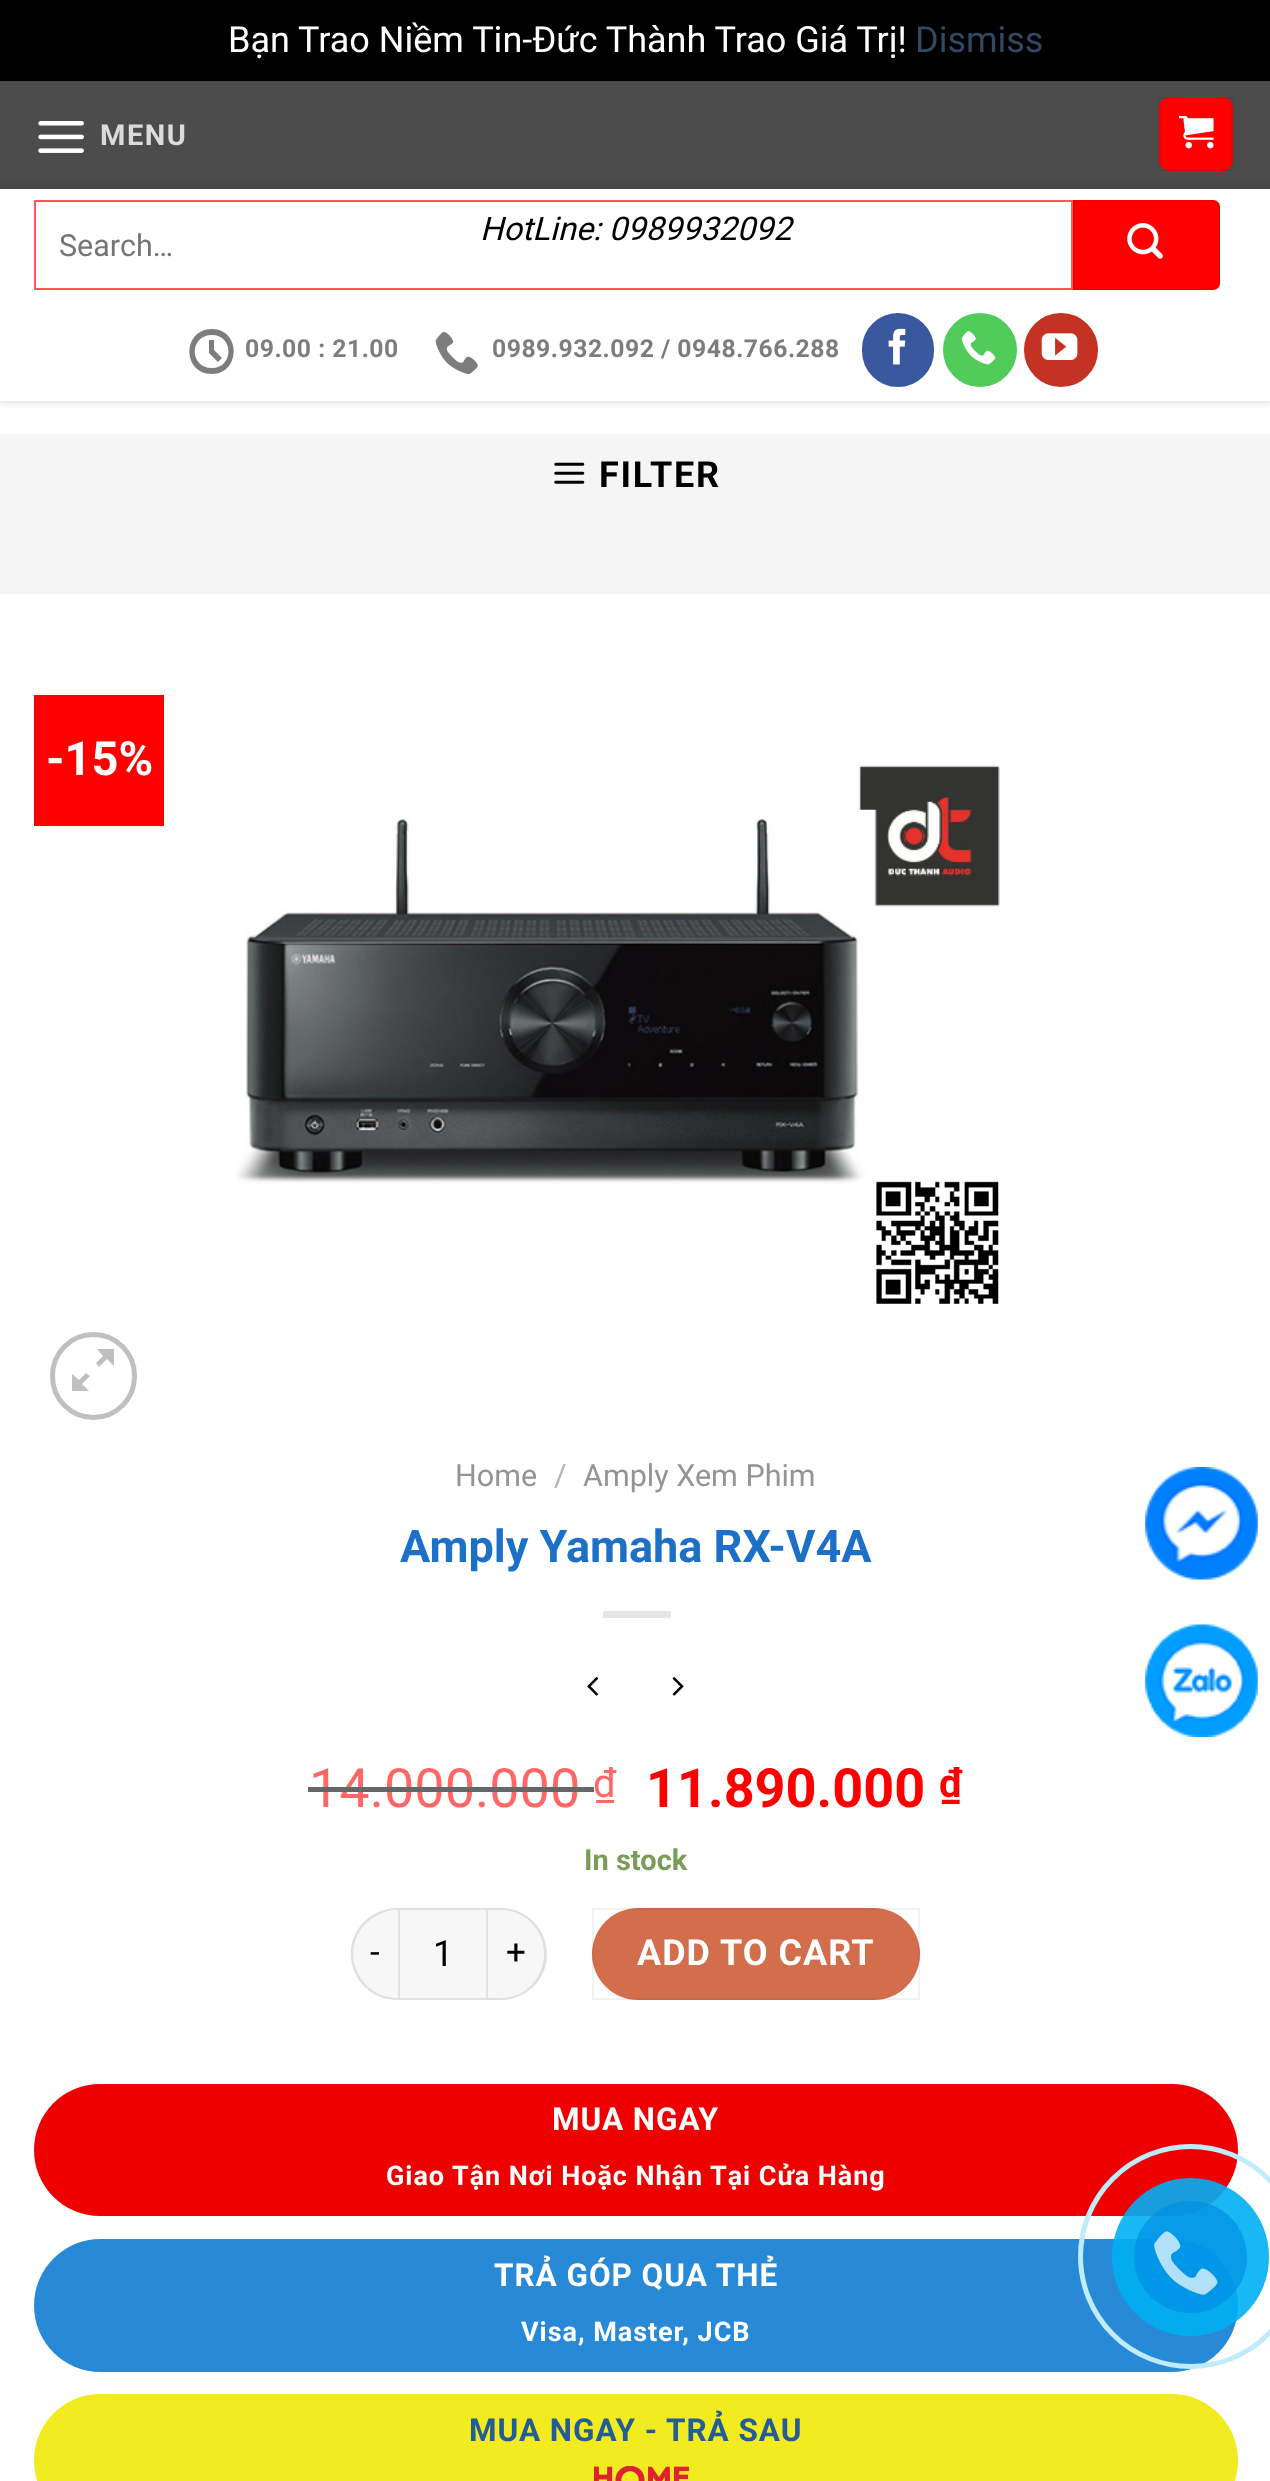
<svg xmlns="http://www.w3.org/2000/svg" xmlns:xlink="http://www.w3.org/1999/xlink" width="1270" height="2481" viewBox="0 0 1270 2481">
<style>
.cls-1{font:36px Roboto;fill:#ffffff}
.cls-2{font:36px Roboto;fill:#334862}
.cls-3{font:bold 29px Roboto;letter-spacing:1.5px;fill:#dbdbdb}
.cls-4{font:italic 32.5px Roboto;fill:#000000}
.cls-5{font:30.5px Roboto;fill:#757575}
.cls-6{font:bold 24.75px Roboto;letter-spacing:0.5px;fill:#7d7d7d}
.cls-7{font:bold 36px Roboto;letter-spacing:1.75px;fill:#000000}
.cls-8{font:bold 47px Roboto;fill:#ffffff}
.cls-9{font:30.5px Roboto;fill:#949494}
.cls-10{font:30.5px Roboto;fill:#b2b2b2}
.cls-11{font:bold 45px Roboto;fill:#1c70c8}
.cls-12{font:54px Roboto;fill:#ff6666}
.cls-13{font:40px Roboto;fill:#ff6666}
.cls-14{font:bold 54px Roboto;fill:#ff0000}
.cls-15{font:bold 40px Roboto;fill:#ff0000}
.cls-16{font:bold 29px Roboto;fill:#7a9c59}
.cls-17{font:35px Roboto;letter-spacing:1px;fill:#000000}
.cls-18{font:36px Roboto;fill:#000000}
.cls-19{font:bold 36px Roboto;letter-spacing:1px;fill:#ffffff}
.cls-20{font:bold 31.5px Roboto;letter-spacing:0.95px;fill:#ffffff}
.cls-21{font:bold 27px Roboto;letter-spacing:0.95px;fill:#ffffff}
.cls-22{font:bold 31.5px Roboto;letter-spacing:0.95px;fill:#235d97}
</style>
<rect width="100%" height="100%" fill="#000000"/>
<rect fill="#ffffff" x="0" y="401" width="1270" height="33"/>
<rect fill="#4c4c4c" x="0" y="81" width="1270" height="108"/>
<image xlink:href="image0.png" x="38" y="121" width="46" height="32"/>
<rect fill="#fe0000" x="1159" y="97" width="74" height="74" rx="11"/>
<rect fill="none" stroke="#000000" stroke-opacity="0.05" stroke-width="2" x="1160" y="98" width="72" height="72"/>
<image xlink:href="image1.png" x="1179" y="116" width="35" height="33"/>
<rect fill="#000000" fill-opacity="0.2" filter="blur(4.5px)" x="0" y="189" width="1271" height="212"/>
<rect fill="#ffffff" x="0" y="189" width="1270" height="212"/>
<rect fill="none" stroke="#ff5757" stroke-width="2" x="35" y="201" width="1037" height="88"/>
<path fill="#fe0000" d="M1073 200H1213C1217 200 1220 203 1220 207V283C1220 287 1217 290 1213 290H1073Z"/>
<rect fill="none" stroke="#000000" stroke-opacity="0.05" stroke-width="2" x="1074" y="201" width="145" height="88"/>
<image xlink:href="image2.png" x="1127" y="223" width="36" height="36"/>
<path fill="#7d7d7d" d="M218 362L209 353V340H214V350L222 358ZM212 329C182 329 182 374 212 374C241 374 241 329 212 329ZM212 368C189 368 189 335 212 335C234 335 234 368 212 368Z"/>
<image xlink:href="image3.png" x="435" y="331" width="43" height="43"/>
<rect fill="#3a589d" stroke="#3a589d" stroke-width="2" x="863" y="314" width="70" height="72" rx="35"/>
<image xlink:href="image4.png" x="888" y="328" width="18" height="37"/>
<circle fill="#51cb5a" stroke="#51cb5a" stroke-width="2" cx="980" cy="350" r="36"/>
<image xlink:href="image5.png" x="961" y="331" width="35" height="34"/>
<circle fill="#c33223" stroke="#c33223" stroke-width="2" cx="1061" cy="350" r="36"/>
<image xlink:href="image6.png" x="1041" y="333" width="37" height="27"/>
<rect fill="#f5f5f5" x="0" y="434" width="1270" height="160"/>
<image xlink:href="image7.png" x="554" y="462" width="31" height="22"/>
<rect fill="#ffffff" x="0" y="594" width="1270" height="1887"/>
<rect fill="#fe0000" x="34" y="695" width="130" height="131"/>
<image xlink:href="image8.png" x="236" y="765" width="764" height="539"/>
<rect fill="none" stroke="#c0c0c0" stroke-width="5" x="52.5" y="1334.5" width="82" height="83" rx="41"/>
<path fill="#c0c0c0" d="M114 1349V1366L107 1359L99 1367L96 1363L103 1356L97 1349ZM90 1376L82 1384L89 1391H72V1374L79 1380L86 1373Z"/>
<rect fill="#e6e6e6" x="603" y="1611" width="68" height="7"/>
<image xlink:href="image9.png" x="587" y="1677" width="12" height="19"/>
<image xlink:href="image10.png" x="672" y="1677" width="12" height="19"/>
<path fill="#f7f7f7" d="M397 1908H398V2000H397C371.5 2000 351 1979.5 351 1954C351 1928.5 371.5 1908 397 1908Z"/>
<path fill="#000000" fill-opacity="0.09" fill-rule="evenodd" d="M397 1908H398V2000C352 2000 333 1942 371 1916C379 1911 388 1908 397 1908ZM397 1910H398V1998C355 1998 336 1942 373 1918C380 1913 388 1910 397 1910Z"/>
<rect fill="#f7f7f7" stroke="#e1e1e1" stroke-width="2" x="399" y="1909" width="88" height="90"/>
<path fill="#f7f7f7" d="M488 1908H501C526.5 1908 547 1928.5 547 1954C547 1979.5 526.5 2000 501 2000H488Z"/>
<path fill="#000000" fill-opacity="0.09" fill-rule="evenodd" d="M488 1908H501C526 1908 547 1929 547 1954C547 1980 526 2000 501 2000H488ZM488 1910H501C525 1910 544 1930 544 1954C544 1978 525 1998 501 1998H488Z"/>
<rect fill="#d26e4b" x="592" y="1908" width="328" height="92" rx="46"/>
<rect fill="none" stroke="#000000" stroke-opacity="0.05" stroke-width="2" x="593" y="1909" width="326" height="90"/>
<rect fill="#ee0000" x="34" y="2084" width="1204" height="132" rx="66"/>
<rect fill="#288ad6" x="34" y="2239" width="1204" height="133" rx="66.5"/>
<rect fill="#f1eb1f" x="34" y="2394" width="1204" height="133" rx="66.5"/>
<image xlink:href="image11.png" x="594" y="2466" width="95" height="15"/>
<image xlink:href="image12.png" x="1145" y="1467" width="113" height="113"/>
<image xlink:href="image13.png" x="1145" y="1624" width="113" height="113"/>
<circle fill="none" stroke="#bfebfc" stroke-width="5" cx="1190.5" cy="2256.5" r="110"/>
<rect fill="#00aff2" fill-opacity="0.9" x="1112" y="2178" width="157" height="158" rx="78.5"/>
<rect fill="#008fe5" fill-opacity="0.7" x="1134" y="2201" width="113" height="112" rx="56"/>
<image xlink:href="image14.png" x="1154" y="2231" width="64" height="64"/>
<text class="cls-1" x="228" y="52">Bạn Trao Niềm Tin-Đức Thành Trao Giá Trị!</text>
<text class="cls-2" x="915" y="52">Dismiss</text>
<text class="cls-3" x="100" y="145">MENU</text>
<text class="cls-4" x="480" y="240">HotLine: 0989932092</text>
<text class="cls-5" x="59" y="256">Search…</text>
<text class="cls-6" x="245" y="357">09.00 : 21.00</text>
<text class="cls-6" x="492" y="357">0989.932.092 / 0948.766.288</text>
<text class="cls-7" x="599" y="487">FILTER</text>
<text class="cls-8" x="46" y="775">-15%</text>
<text class="cls-9" x="455" y="1486">Home</text>
<text class="cls-10" x="554" y="1486">/</text>
<text class="cls-9" x="583" y="1486">Amply Xem Phim</text>
<text class="cls-11" x="400" y="1562">Amply Yamaha RX-V4A</text>
<text class="cls-12" x="309" y="1807">14.000.000</text>
<rect fill="#666666" x="308" y="1787" width="286" height="5"/>
<text class="cls-13" x="593" y="1797">₫</text>
<text class="cls-14" x="646" y="1807">11.890.000</text>
<text class="cls-15" x="939" y="1797">₫</text>
<text class="cls-16" x="584" y="1870">In stock</text>
<text class="cls-17" x="370" y="1964">-</text>
<text class="cls-18" x="433" y="1966">1</text>
<text class="cls-17" x="506" y="1964">+</text>
<text class="cls-19" x="637" y="1965">ADD TO CART</text>
<text class="cls-20" x="552" y="2130">MUA NGAY</text>
<text class="cls-21" x="386" y="2185">Giao Tận Nơi Hoặc Nhận Tại Cửa Hàng</text>
<text class="cls-20" x="494" y="2286">TRẢ GÓP QUA THẺ</text>
<text class="cls-21" x="521" y="2341">Visa, Master, JCB</text>
<text class="cls-22" x="469" y="2441">MUA NGAY - TRẢ SAU</text>
</svg>
